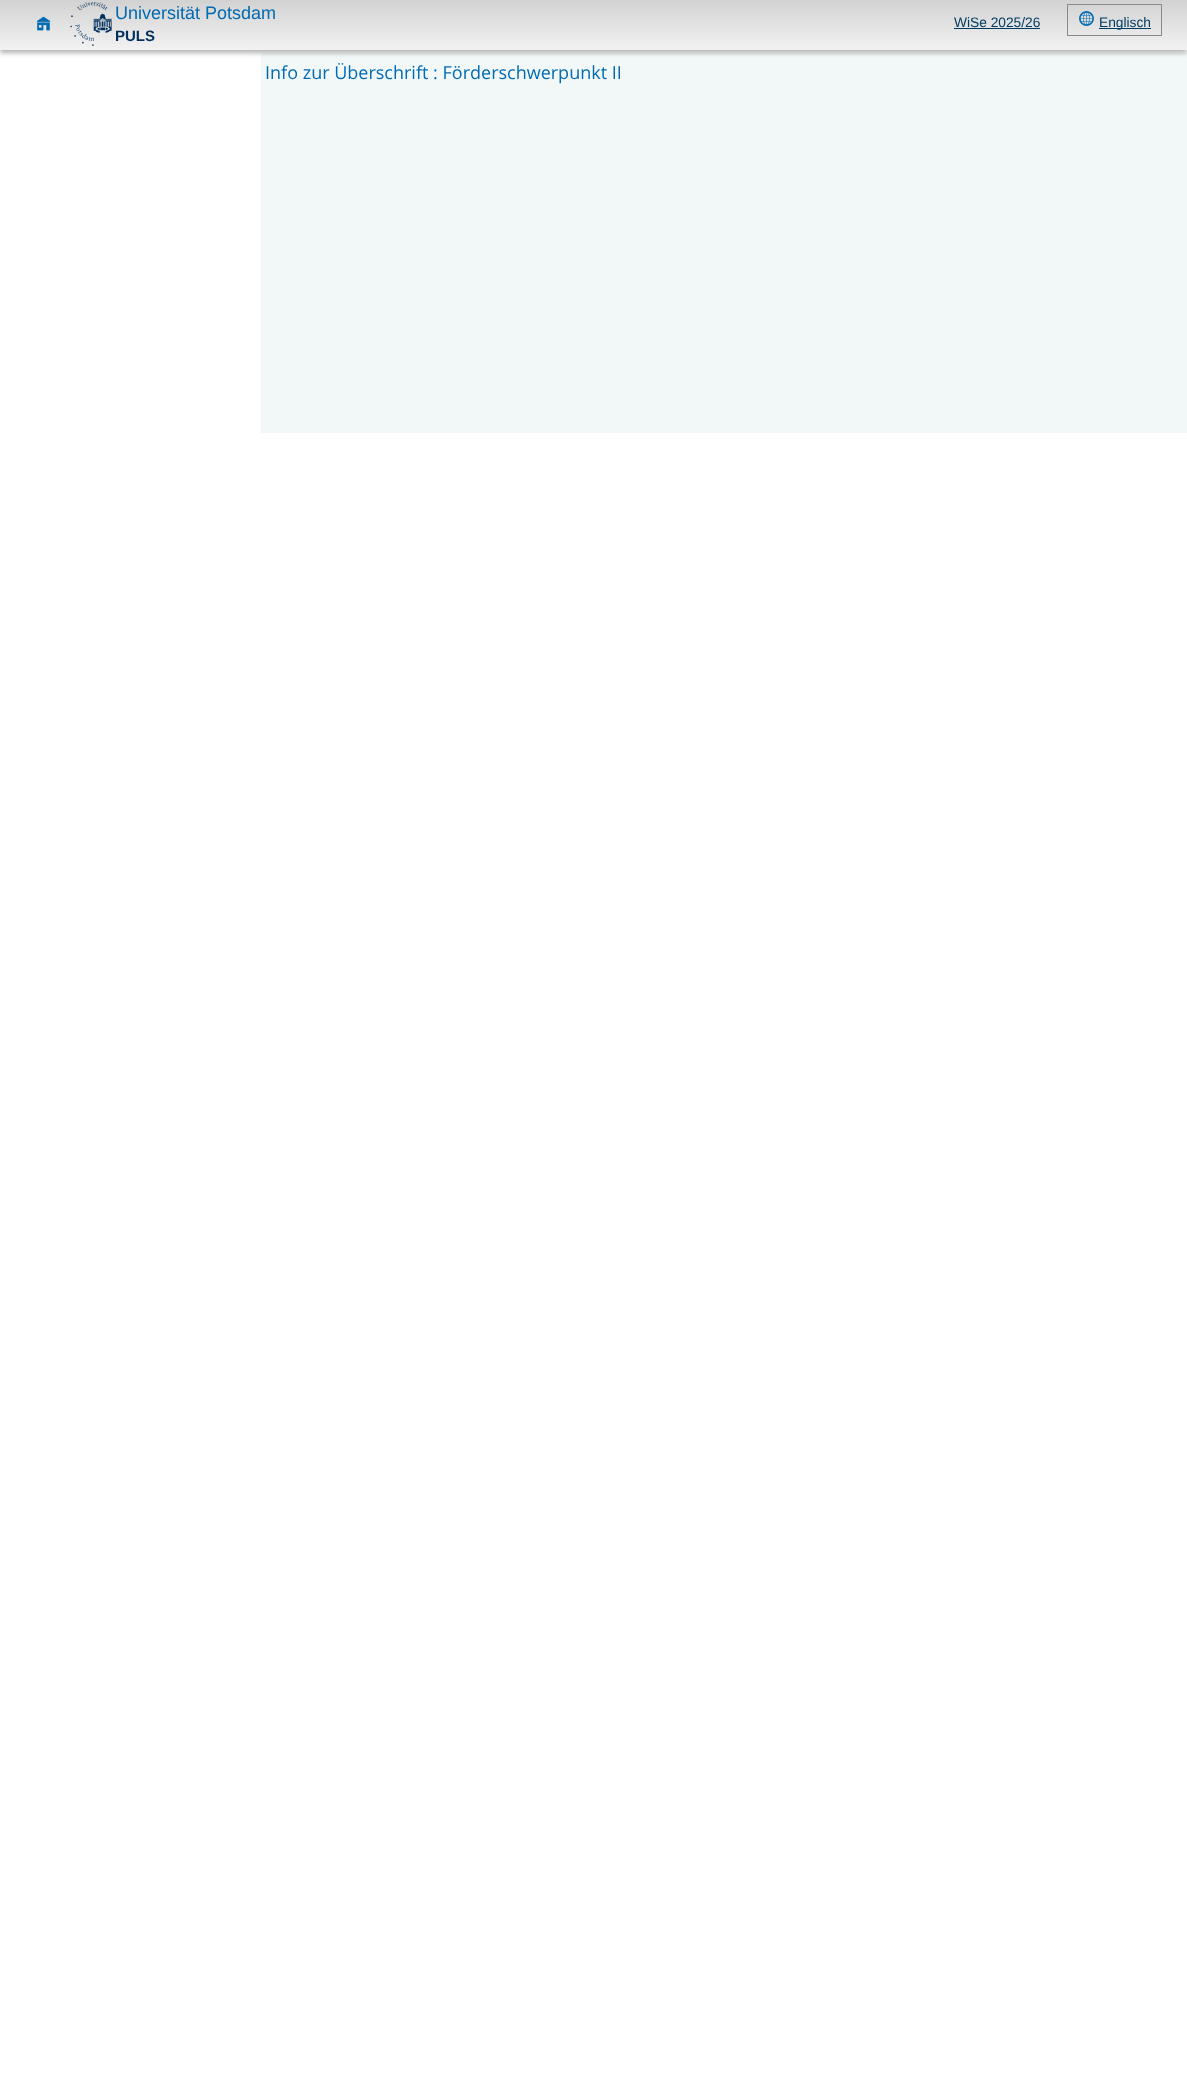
<svg xmlns="http://www.w3.org/2000/svg" xmlns:xlink="http://www.w3.org/1999/xlink" width="1187" height="2094" viewBox="0 0 1187 2094">
<style>
.cls-1{font:18px Liberation Sans;fill:#006ab2}
.cls-2{font:bold 15px Liberation Sans;fill:#00305e}
.cls-3{font:13.75px Liberation Sans;fill:#003c62}
.cls-4{font:18px Open Sans;fill:#006ab2}
</style>
<defs>
<linearGradient id="g1" gradientUnits="userSpaceOnUse" x1="594" y1="0" x2="594" y2="50"><stop offset="0" stop-color="#d2d2d2"/><stop offset="1" stop-color="#f2f2f2"/></linearGradient>
</defs>
<rect width="100%" height="100%" fill="#ffffff"/>
<rect fill="#f2f7f8" x="261" y="53" width="926" height="380"/>
<rect fill="#000000" fill-opacity="0.3" filter="blur(2.5px)" x="0" y="3" width="1187" height="50"/>
<rect fill="url(#g1)" x="0" y="0" width="1187" height="50"/>
<image xlink:href="image0.png" x="36" y="16" width="15" height="15"/>
<image xlink:href="image1.png" x="70" y="2" width="42" height="44"/>
<rect fill="#003c62" x="954" y="28" width="86" height="1"/>
<rect fill="none" stroke="#8a8888" x="1067.5" y="4.5" width="94" height="31"/>
<image xlink:href="image2.png" x="1079" y="11" width="15" height="15"/>
<rect fill="#003c62" x="1099" y="28" width="52" height="1"/>
<text class="cls-1" x="115" y="19">Universität Potsdam</text>
<text class="cls-2" x="115" y="41">PULS</text>
<text class="cls-3" x="954" y="27">WiSe 2025/26</text>
<text class="cls-3" x="1099" y="27">Englisch</text>
<text class="cls-4" x="265" y="79">Info zur Überschrift : Förderschwerpunkt II</text>
</svg>
